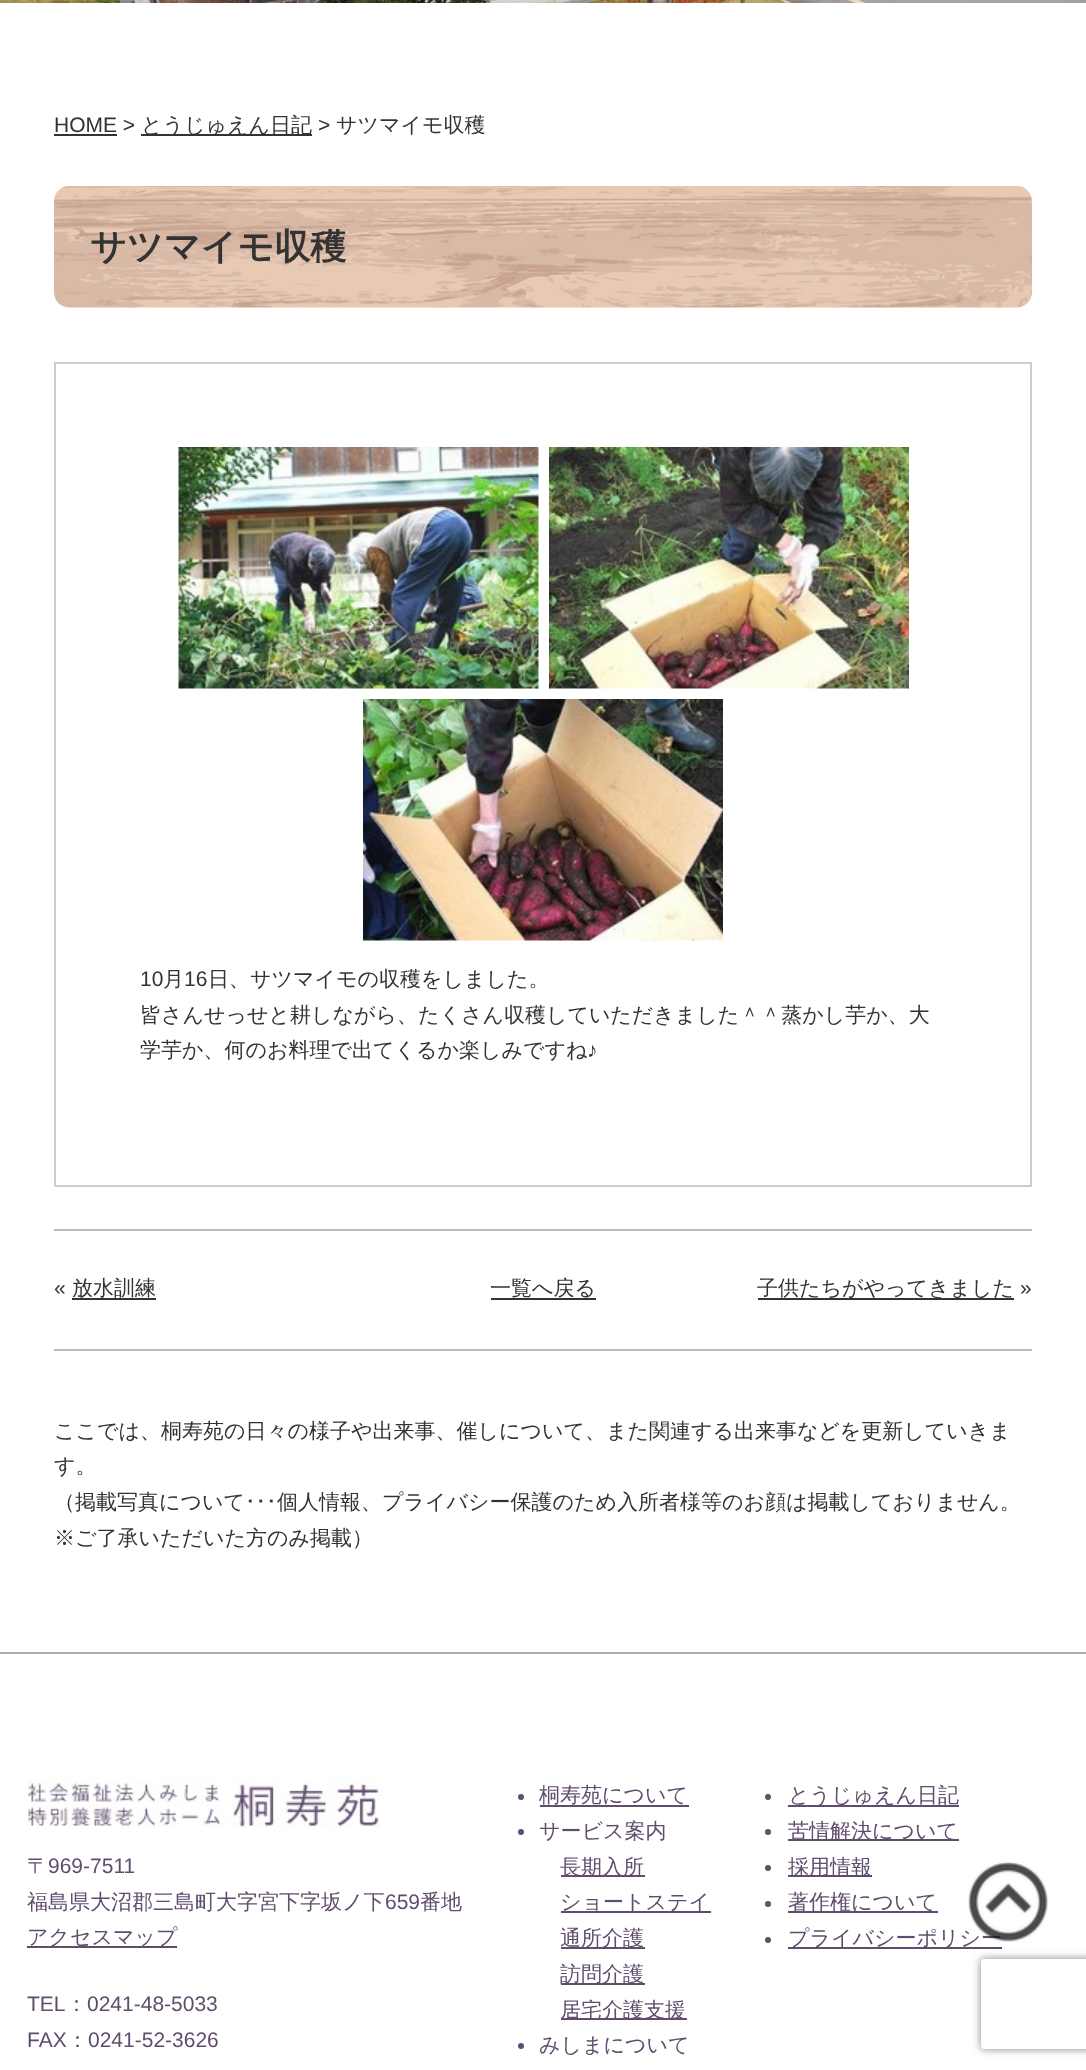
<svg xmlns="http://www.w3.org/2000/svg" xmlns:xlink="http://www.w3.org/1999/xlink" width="1086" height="2070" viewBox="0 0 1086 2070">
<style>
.cls-1{font:21px Liberation Sans;fill:#333333}
.cls-2{font:500 21px WenQuanYi Zen Hei;fill:#333333}
.cls-3{font:bold 36px WenQuanYi Zen Hei;fill:#333333}
.cls-4{font:21px IPAPGothic;fill:#333333}
.cls-5{font:500 21px WenQuanYi Zen Hei;fill:#604c6d}
.cls-6{font:21px Liberation Sans;fill:#604c6d}
</style>
<defs>
<clipPath id="clip1"><path d="M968 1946H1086V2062H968ZM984 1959H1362C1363.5 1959 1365 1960.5 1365 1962V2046C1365 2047.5 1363.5 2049 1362 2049H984C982.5 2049 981 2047.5 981 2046V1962C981 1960.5 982.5 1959 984 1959Z" clip-rule="evenodd"/></clipPath>
</defs>
<rect width="100%" height="100%" fill="#ffffff"/>
<image xlink:href="image0.png" x="0" y="0" width="1086" height="3"/>
<rect fill="#333333" x="54" y="134" width="63" height="2"/>
<rect fill="#333333" x="141" y="134" width="171" height="2"/>
<image xlink:href="image1.png" x="54" y="186" width="978" height="122"/>
<rect fill="none" stroke="#cdcdcd" stroke-width="2" x="55" y="363" width="976" height="823"/>
<image xlink:href="image2.png" x="178" y="447" width="361" height="242"/>
<image xlink:href="image3.png" x="549" y="447" width="360" height="242"/>
<image xlink:href="image4.png" x="363" y="699" width="360" height="242"/>
<rect fill="#bababa" x="54" y="1229" width="978" height="2"/>
<rect fill="#bababa" x="54" y="1349" width="978" height="2"/>
<rect fill="#333333" x="72" y="1298" width="84" height="2"/>
<rect fill="#333333" x="491" y="1298" width="105" height="2"/>
<rect fill="#333333" x="758" y="1298" width="256" height="2"/>
<rect fill="#b7a9a1" x="0" y="1652" width="1086" height="2"/>
<image xlink:href="image5.png" x="27" y="1779" width="354" height="49"/>
<rect fill="#604c6d" x="27" y="1946" width="150" height="2"/>
<circle fill="#604c6d" cx="521" cy="1797" r="3"/>
<rect fill="#604c6d" x="540" y="1805" width="149" height="2"/>
<circle fill="#604c6d" cx="521" cy="1832" r="3"/>
<rect fill="#604c6d" x="561" y="1875" width="84" height="2"/>
<rect fill="#604c6d" x="561" y="1911" width="150" height="2"/>
<rect fill="#604c6d" x="561" y="1947" width="84" height="2"/>
<rect fill="#604c6d" x="561" y="1983" width="84" height="2"/>
<rect fill="#604c6d" x="561" y="2018" width="126" height="2"/>
<circle fill="#604c6d" cx="521" cy="2046" r="3"/>
<circle fill="#604c6d" cx="768" cy="1797" r="3"/>
<rect fill="#604c6d" x="788" y="1805" width="171" height="2"/>
<circle fill="#604c6d" cx="768" cy="1832" r="3"/>
<rect fill="#604c6d" x="788" y="1839" width="171" height="2"/>
<circle fill="#604c6d" cx="768" cy="1868" r="3"/>
<rect fill="#604c6d" x="788" y="1875" width="84" height="2"/>
<circle fill="#604c6d" cx="768" cy="1904" r="3"/>
<rect fill="#604c6d" x="788" y="1911" width="150" height="2"/>
<circle fill="#604c6d" cx="768" cy="1940" r="3"/>
<rect fill="#604c6d" x="788" y="1947" width="214" height="2"/>
<g clip-path="url(#clip1)">
<rect fill="#808080" filter="blur(4px)" x="981" y="1959" width="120" height="90" rx="3"/>
</g>
<text class="cls-1" x="54" y="132">HOME &gt;</text>
<text class="cls-2" x="141" y="132">とうじゅえん日記</text>
<text class="cls-1" x="318" y="132">&gt;</text>
<text class="cls-2" x="336" y="132">サツマイモ収穫</text>
<text class="cls-3" x="90" y="259">サツマイモ収穫</text>
<text class="cls-1" x="140" y="986">10</text>
<text class="cls-2" x="163" y="986">月</text>
<text class="cls-1" x="184" y="986">16</text>
<text class="cls-2" x="208" y="986">日、サツマイモの収穫をしました。</text>
<text class="cls-2"><tspan x="140" y="1022">皆さんせっせと耕しながら、たくさん収穫していただきました＾＾蒸かし芋か、大</tspan><tspan x="140" y="1057">学芋か、何のお料理で出てくるか楽しみですね</tspan></text>
<text class="cls-1" x="587" y="1057">♪</text>
<text class="cls-1" x="54" y="1295">«</text>
<text class="cls-2" x="72" y="1295">放水訓練</text>
<text class="cls-2" x="490" y="1295">一覧へ戻る</text>
<text class="cls-2" x="757" y="1295">子供たちがやってきました</text>
<text class="cls-1" x="1020" y="1295">»</text>
<text class="cls-2"><tspan x="54" y="1438">ここでは、桐寿苑の日々の様子や出来事、催しについて、また関連する出来事などを更新していきま</tspan><tspan x="54" y="1473">す。</tspan><tspan x="54" y="1509">（掲載写真について</tspan></text>
<text class="cls-4" x="245" y="1509">･･･</text>
<text class="cls-2" x="277" y="1509">個人情報、プライバシー保護のため入所者様等のお顔は掲載しておりません。</text>
<text class="cls-2" x="54" y="1545">※ご了承いただいた方のみ掲載）</text>
<text class="cls-5" x="27" y="1873">〒</text>
<text class="cls-6" x="48" y="1873">969-7511</text>
<text class="cls-5" x="27" y="1909">福島県大沼郡三島町大字宮下字坂ノ下</text>
<text class="cls-6" x="385" y="1909">659</text>
<text class="cls-5" x="420" y="1909">番地</text>
<text class="cls-5" x="27" y="1944">アクセスマップ</text>
<text class="cls-6" x="27" y="2011">TEL</text>
<text class="cls-5" x="66" y="2011">：</text>
<text class="cls-6" x="87" y="2011">0241-48-5033</text>
<text class="cls-6" x="27" y="2047">FAX</text>
<text class="cls-5" x="67" y="2047">：</text>
<text class="cls-6" x="88" y="2047">0241-52-3626</text>
<text class="cls-5"><tspan x="539" y="1802">桐寿苑について</tspan><tspan x="539" y="1838">サービス案内</tspan></text>
<text class="cls-5"><tspan x="560" y="1874">長期入所</tspan><tspan x="560" y="1909">ショートステイ</tspan><tspan x="560" y="1945">通所介護</tspan><tspan x="560" y="1981">訪問介護</tspan><tspan x="560" y="2017">居宅介護支援</tspan></text>
<text class="cls-5" x="539" y="2052">みしまについて</text>
<text class="cls-5"><tspan x="788" y="1802">とうじゅえん日記</tspan><tspan x="788" y="1838">苦情解決について</tspan><tspan x="788" y="1874">採用情報</tspan><tspan x="788" y="1909">著作権について</tspan><tspan x="788" y="1945">プライバシーポリシー</tspan></text>
<image xlink:href="image6.png" x="968" y="1861" width="81" height="81"/>
</svg>
